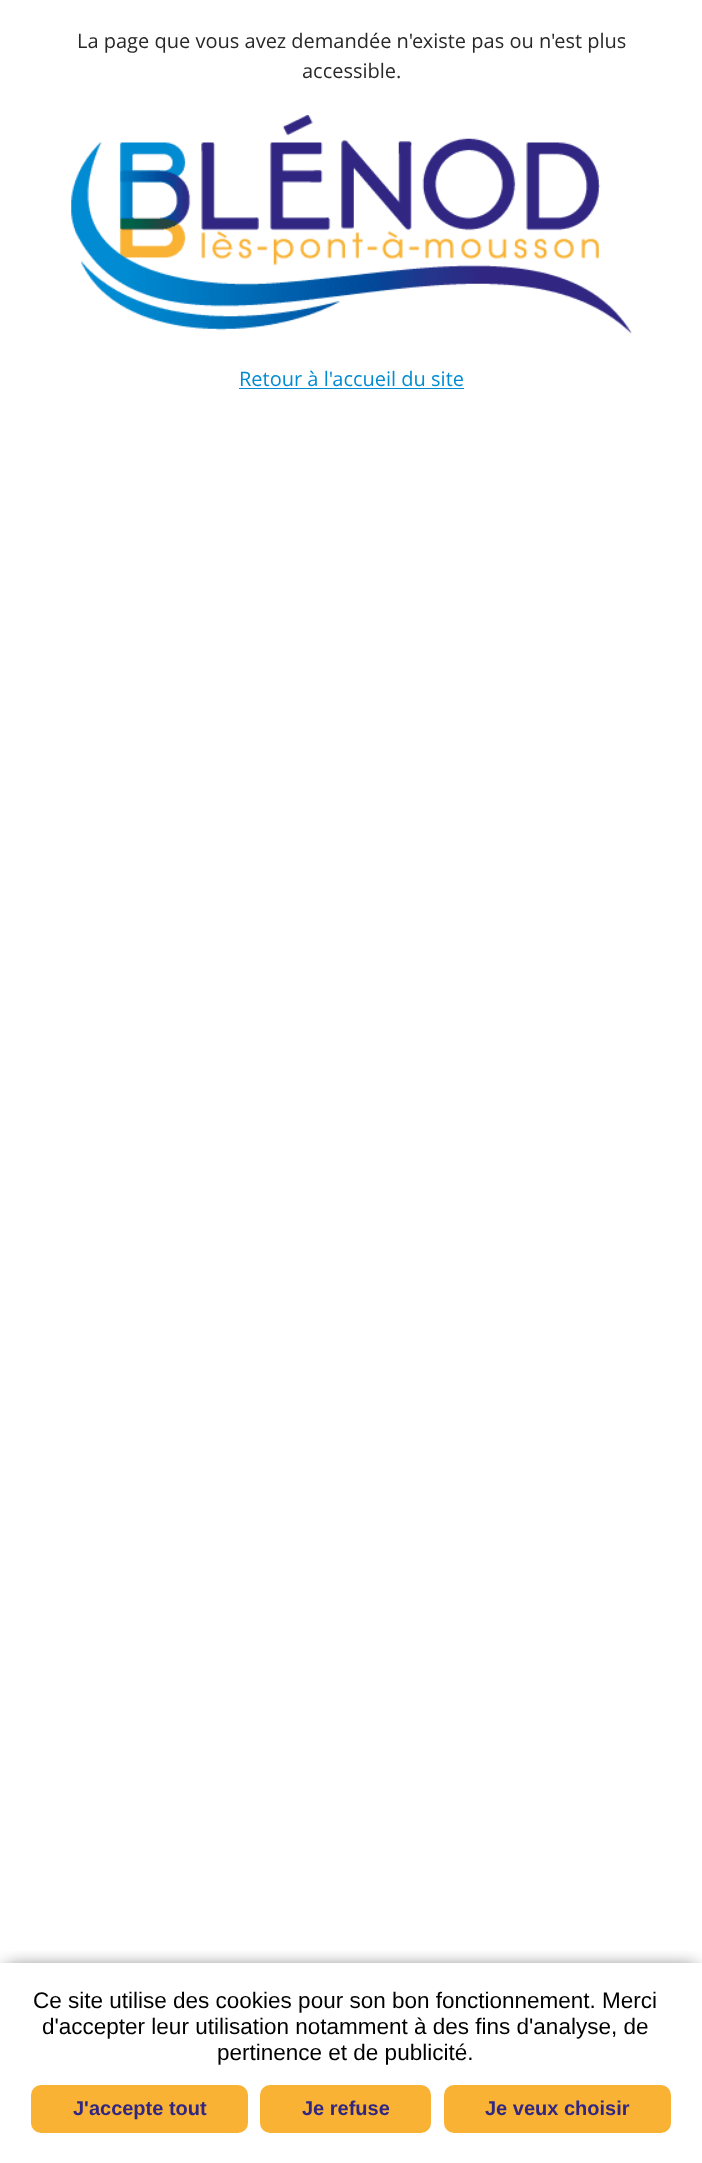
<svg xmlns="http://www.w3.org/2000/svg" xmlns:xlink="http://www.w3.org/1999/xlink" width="702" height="2163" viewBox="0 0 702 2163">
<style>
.cls-1{font:20px Open Sans;fill:#282828}
.cls-2{font:20px Open Sans;fill:#008bd2}
.cls-3{font:22.5px Liberation Sans;fill:#000000}
.cls-4{font:bold 20px Liberation Sans;fill:#312783}
</style>
<defs>
<clipPath id="clip1"><rect x="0" y="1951" width="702" height="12"/></clipPath>
</defs>
<rect width="100%" height="100%" fill="#ffffff"/>
<image xlink:href="image0.png" x="71" y="115" width="561" height="219"/>
<rect fill="#008bd2" x="239" y="388" width="225" height="1"/>
<g clip-path="url(#clip1)">
<rect fill="#000000" fill-opacity="0.75" filter="blur(9.5px)" x="6" y="1969" width="690" height="189"/>
</g>
<rect fill="#f9b233" x="31" y="2085" width="217" height="48" rx="10"/>
<rect fill="#f9b233" x="260" y="2085" width="171" height="48" rx="10"/>
<rect fill="#f9b233" x="444" y="2085" width="227" height="48" rx="10"/>
<text class="cls-1" x="77" y="48">La page que vous avez demandée n'existe pas ou n'est plus</text>
<text class="cls-1" x="302" y="78">accessible.</text>
<text class="cls-2" x="239" y="386">Retour à l'accueil du site</text>
<text class="cls-3" x="33" y="2008">Ce site utilise des cookies pour son bon fonctionnement. Merci</text>
<text class="cls-3" x="42" y="2034">d'accepter leur utilisation notamment à des fins d'analyse, de</text>
<text class="cls-3" x="217" y="2060">pertinence et de publicité.</text>
<text class="cls-4" x="73" y="2115">J'accepte tout</text>
<text class="cls-4" x="302" y="2115">Je refuse</text>
<text class="cls-4" x="485" y="2115">Je veux choisir</text>
</svg>
